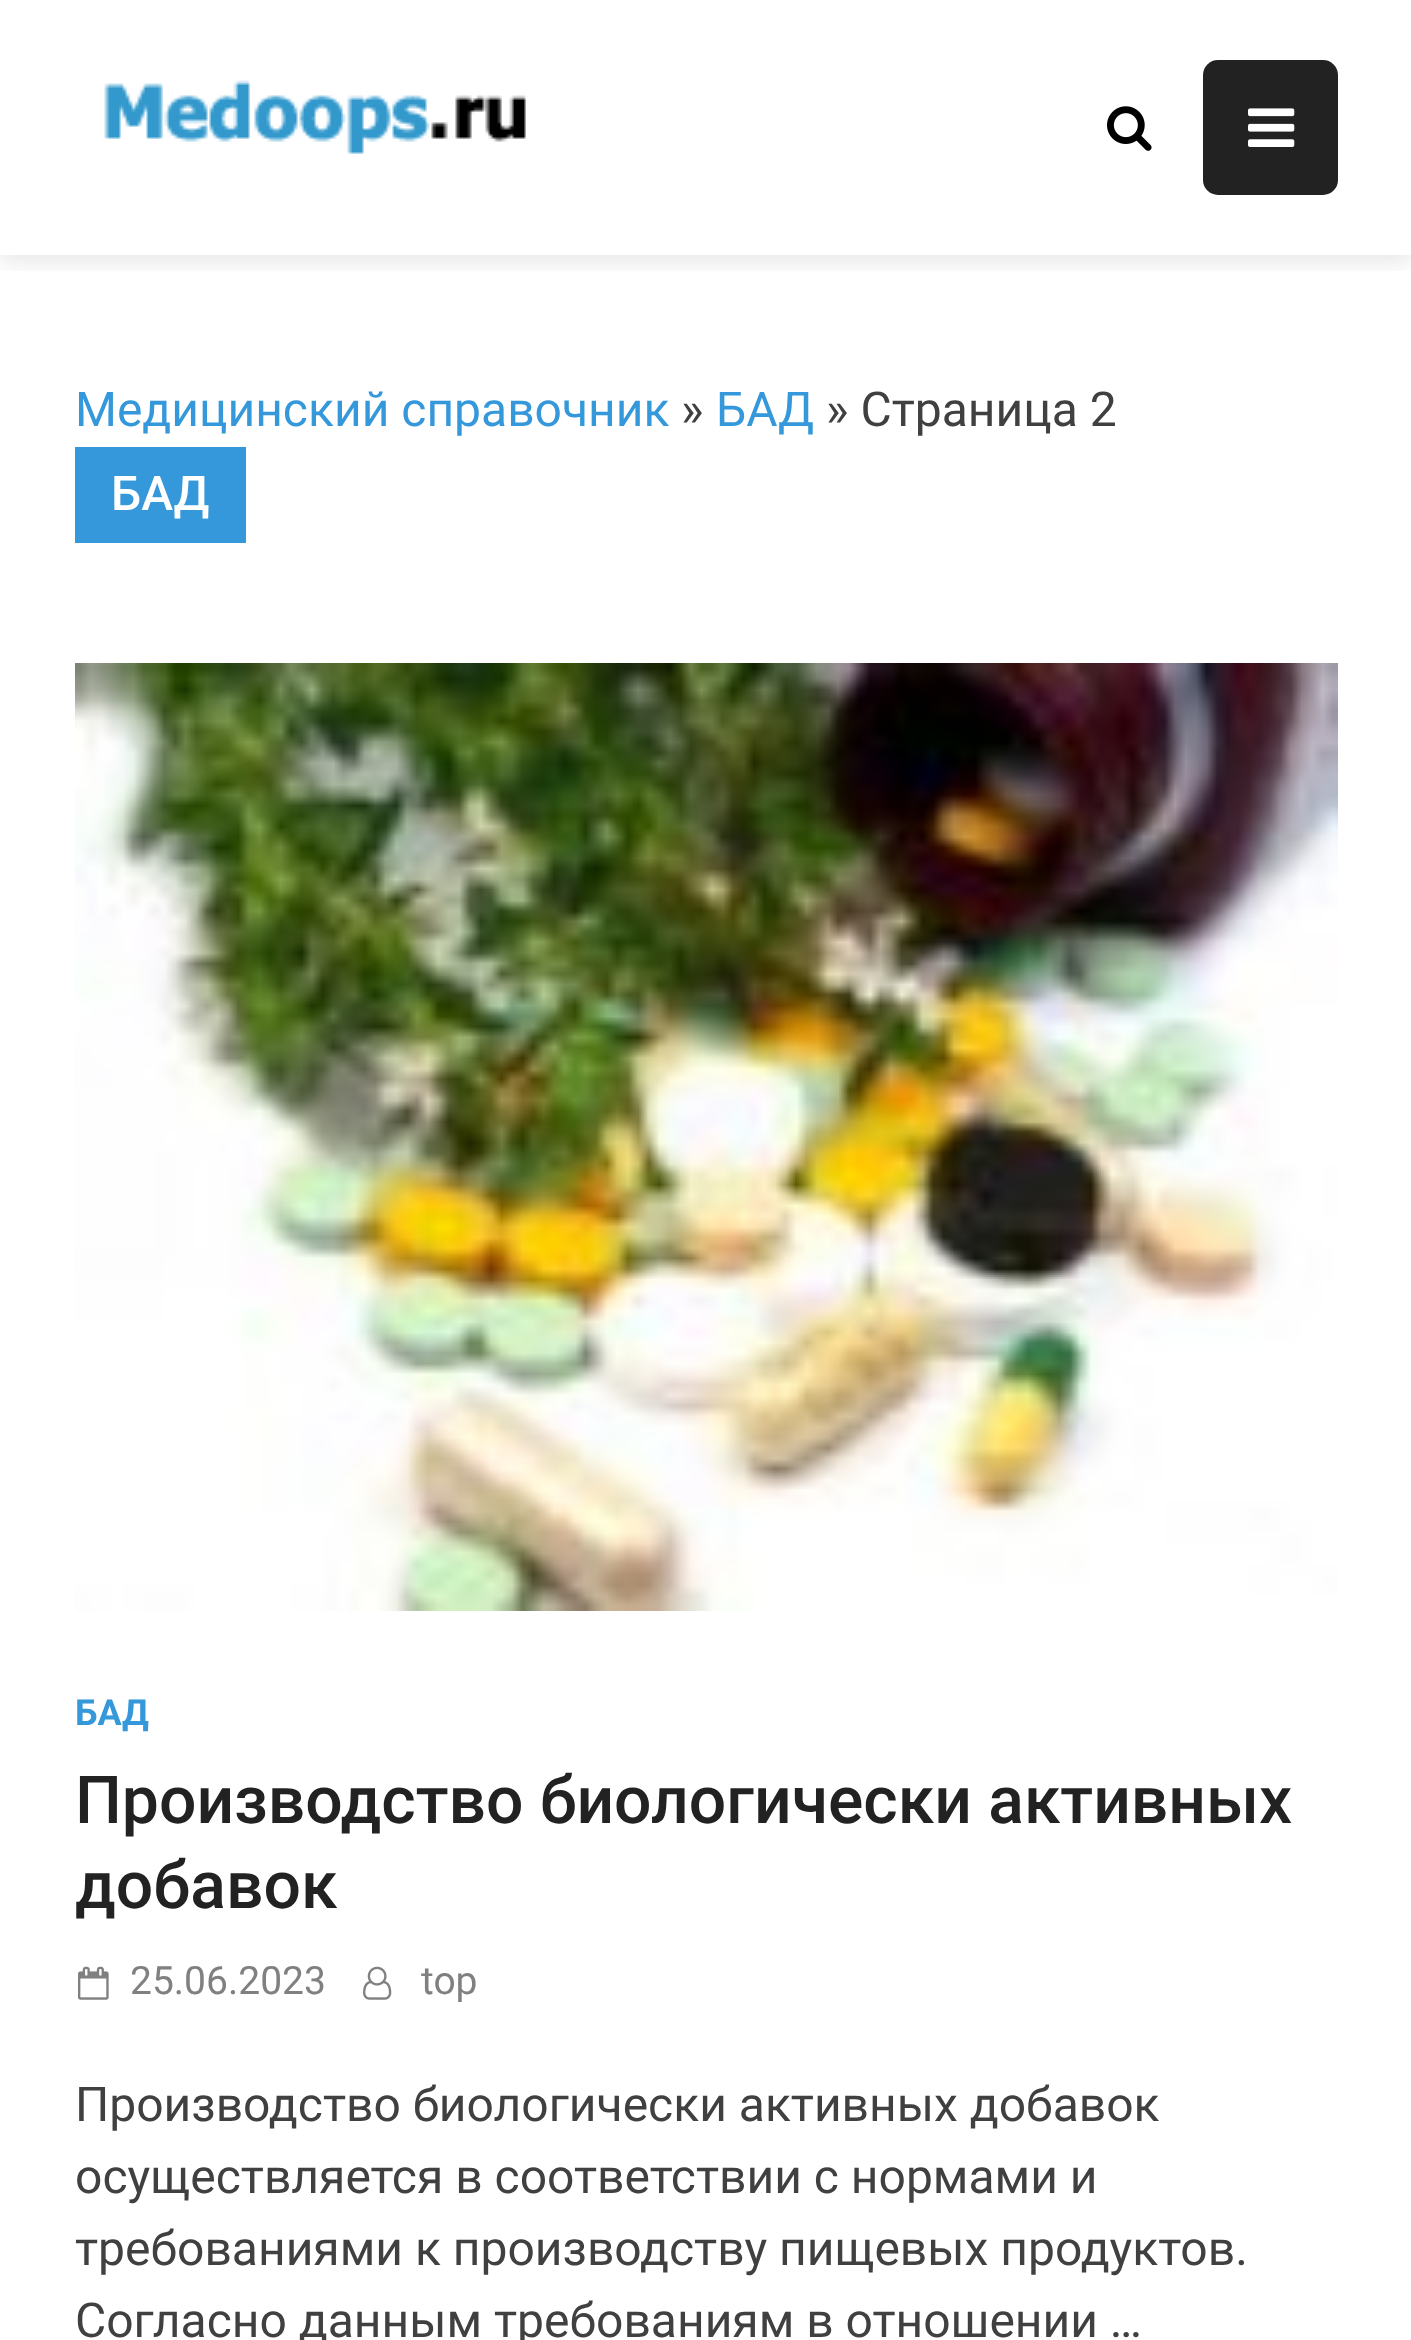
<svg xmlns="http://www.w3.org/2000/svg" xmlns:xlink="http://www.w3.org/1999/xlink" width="1411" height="2340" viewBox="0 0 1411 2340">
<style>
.cls-1{font:48px Roboto;fill:#3498db}
.cls-2{font:48px Roboto;fill:#404040}
.cls-3{font:500 48px Roboto;fill:#ffffff}
.cls-4{font:bold 36px Roboto;fill:#3498db}
.cls-5{font:500 66px Roboto;fill:#222222}
.cls-6{font:39px Roboto;fill:#808080}
</style>
<defs>
<clipPath id="clip1"><rect x="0" y="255" width="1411" height="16"/></clipPath>
</defs>
<rect width="100%" height="100%" fill="#ffffff"/>
<g clip-path="url(#clip1)">
<rect fill="#000000" fill-opacity="0.1" filter="blur(12px)" x="0" y="6" width="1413" height="255"/>
</g>
<image xlink:href="image0.png" x="104" y="80" width="422" height="74"/>
<image xlink:href="image1.png" x="1107" y="106" width="45" height="45"/>
<rect fill="#222222" x="1203" y="60" width="135" height="135" rx="15"/>
<image xlink:href="image2.png" x="1248" y="108" width="47" height="39"/>
<rect fill="#3498db" x="75" y="447" width="171" height="96"/>
<image xlink:href="image3.png" x="75" y="663" width="1263" height="948"/>
<image xlink:href="image4.png" x="78" y="1966" width="31" height="34"/>
<image xlink:href="image5.png" x="363" y="1966" width="29" height="34"/>
<text class="cls-1" x="75" y="426">Медицинский справочник</text>
<text class="cls-2" x="681" y="426">»</text>
<text class="cls-1" x="716" y="426">БАД</text>
<text class="cls-2" x="826" y="426">» Страница 2</text>
<text class="cls-3" x="111" y="510">БАД</text>
<text class="cls-4" x="75" y="1725">БАД</text>
<text class="cls-5"><tspan x="75" y="1823">Производство биологически активных</tspan><tspan x="75" y="1908">добавок</tspan></text>
<text class="cls-6" x="130" y="1994">25.06.2023</text>
<text class="cls-6" x="421" y="1994">top</text>
<text class="cls-2"><tspan x="75" y="2121">Производство биологически активных добавок</tspan><tspan x="75" y="2193">осуществляется в соответствии с нормами и</tspan><tspan x="75" y="2265">требованиями к производству пищевых продуктов.</tspan><tspan x="75" y="2337">Согласно данным требованиям в отношении …</tspan></text>
</svg>
